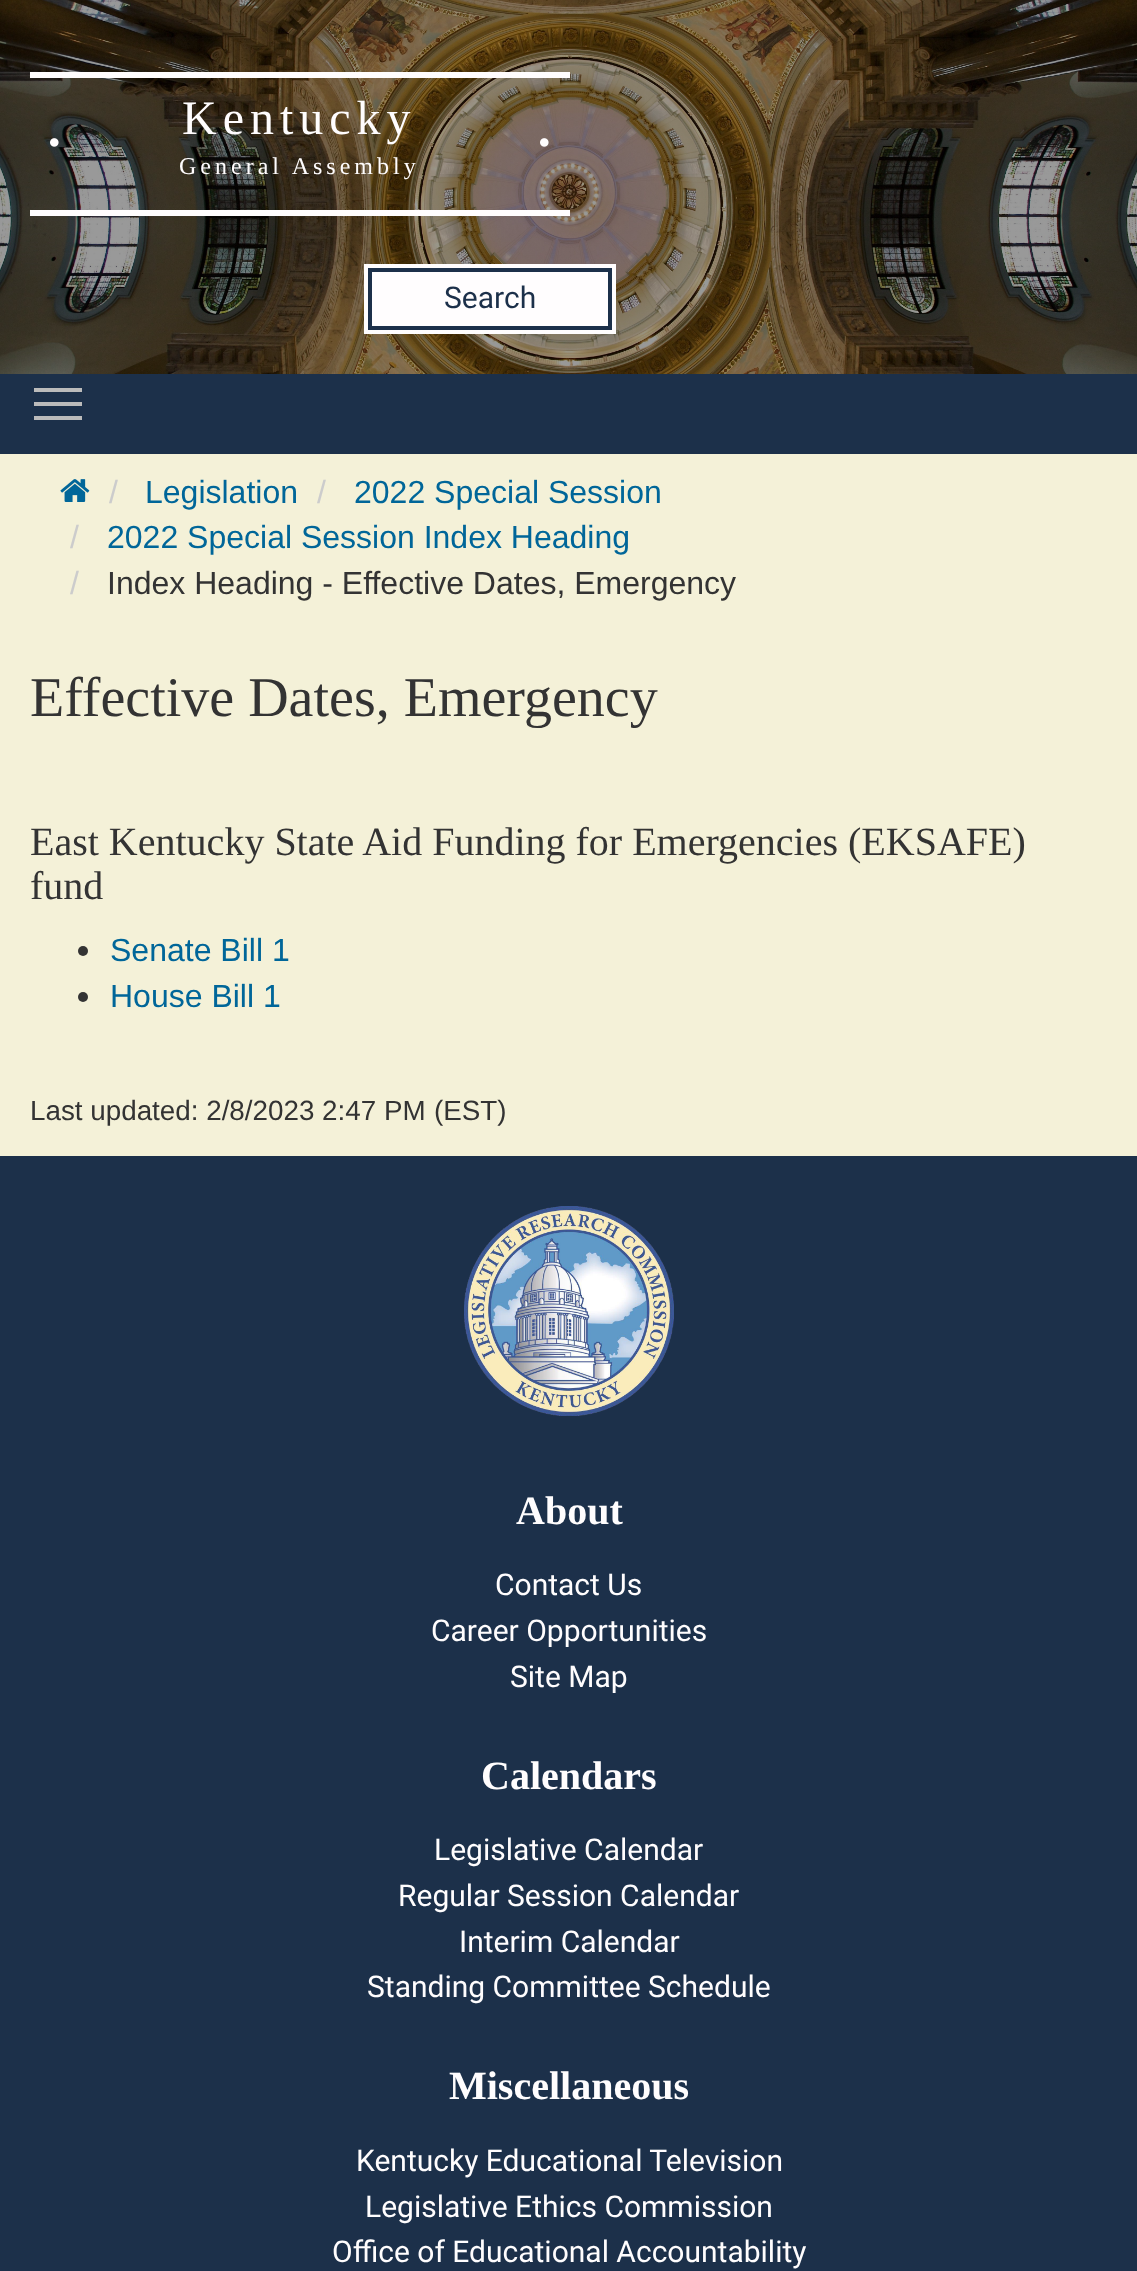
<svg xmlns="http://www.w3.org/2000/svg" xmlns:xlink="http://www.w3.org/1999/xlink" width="1137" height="2271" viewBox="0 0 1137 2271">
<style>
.cls-1{font:48px Liberation Serif;letter-spacing:6px;fill:#fffdfe}
.cls-2{font:24px Liberation Serif;letter-spacing:4px;fill:#fffdfe}
.cls-3{font:30px Roboto;fill:#1c304a}
.cls-4{font:32px Liberation Sans;fill:#cccccc}
.cls-5{font:32px Liberation Sans;fill:#006699}
.cls-6{font:32px Liberation Sans;fill:#333333}
.cls-7{font:56px Liberation Serif;fill:#333333}
.cls-8{font:40px Liberation Serif;fill:#333333}
.cls-9{font:27.8px Liberation Sans;fill:#333333}
.cls-10{font:bold 40px Liberation Serif;fill:#fffdfe}
.cls-11{font:30px Roboto;fill:#fffdfe}
</style>
<rect width="100%" height="100%" fill="#f4f1d8"/>
<image xlink:href="image0.png" x="0" y="0" width="1137" height="374"/>
<rect fill="#fffdfe" x="30" y="72" width="540" height="6"/>
<rect fill="#fffdfe" x="30" y="210" width="540" height="6"/>
<image xlink:href="image1.png" x="50" y="138" width="9" height="9"/>
<image xlink:href="image2.png" x="540" y="138" width="9" height="9"/>
<rect fill="#fffdfe" x="364" y="264" width="252" height="70"/>
<rect fill="none" stroke="#1c304a" stroke-width="4" x="370" y="270" width="240" height="58"/>
<rect fill="#1c304a" x="0" y="374" width="1137" height="80"/>
<rect fill="#bbbbbb" x="34" y="402" width="48" height="4"/>
<rect fill="#bbbbbb" x="34" y="388" width="48" height="4"/>
<rect fill="#bbbbbb" x="34" y="416" width="48" height="4"/>
<image xlink:href="image3.png" x="60" y="479" width="30" height="23"/>
<circle fill="#333333" cx="83" cy="951" r="5"/>
<circle fill="#333333" cx="83" cy="997" r="5"/>
<rect fill="#1c304a" x="0" y="1156" width="1137" height="1115"/>
<image xlink:href="image4.png" x="464" y="1206" width="210" height="210"/>
<text class="cls-1" x="182" y="134">Kentucky</text>
<text class="cls-2" x="179" y="174">General Assembly</text>
<text class="cls-3" x="444" y="308">Search</text>
<text class="cls-4" x="109" y="503">/</text>
<text class="cls-5" x="145" y="503">Legislation</text>
<text class="cls-4" x="317" y="503">/</text>
<text class="cls-5" x="354" y="503">2022 Special Session</text>
<text class="cls-4" x="70" y="548">/</text>
<text class="cls-5" x="107" y="548">2022 Special Session Index Heading</text>
<text class="cls-4" x="70" y="594">/</text>
<text class="cls-6" x="107" y="594">Index Heading - Effective Dates, Emergency</text>
<text class="cls-7" x="30" y="716">Effective Dates, Emergency</text>
<text class="cls-8"><tspan x="30" y="855">East Kentucky State Aid Funding for Emergencies (EKSAFE)</tspan><tspan x="30" y="899">fund</tspan></text>
<text class="cls-5"><tspan x="110" y="961">Senate Bill 1</tspan><tspan x="110" y="1007">House Bill 1</tspan></text>
<text class="cls-9" x="30" y="1120">Last updated: 2/8/2023 2:47 PM</text>
<text class="cls-9" x="434" y="1120">(EST)</text>
<text class="cls-10" x="516" y="1524">About</text>
<text class="cls-11" x="495" y="1595">Contact Us</text>
<text class="cls-11" x="431" y="1641">Career Opportunities</text>
<text class="cls-11" x="510" y="1687">Site Map</text>
<text class="cls-10" x="481" y="1789">Calendars</text>
<text class="cls-11" x="434" y="1860">Legislative Calendar</text>
<text class="cls-11" x="398" y="1906">Regular Session Calendar</text>
<text class="cls-11" x="459" y="1952">Interim Calendar</text>
<text class="cls-11" x="367" y="1997">Standing Committee Schedule</text>
<text class="cls-10" x="449" y="2099">Miscellaneous</text>
<text class="cls-11" x="356" y="2171">Kentucky Educational Television</text>
<text class="cls-11" x="365" y="2217">Legislative Ethics Commission</text>
<text class="cls-11" x="332" y="2262">Office of Educational Accountability</text>
</svg>
